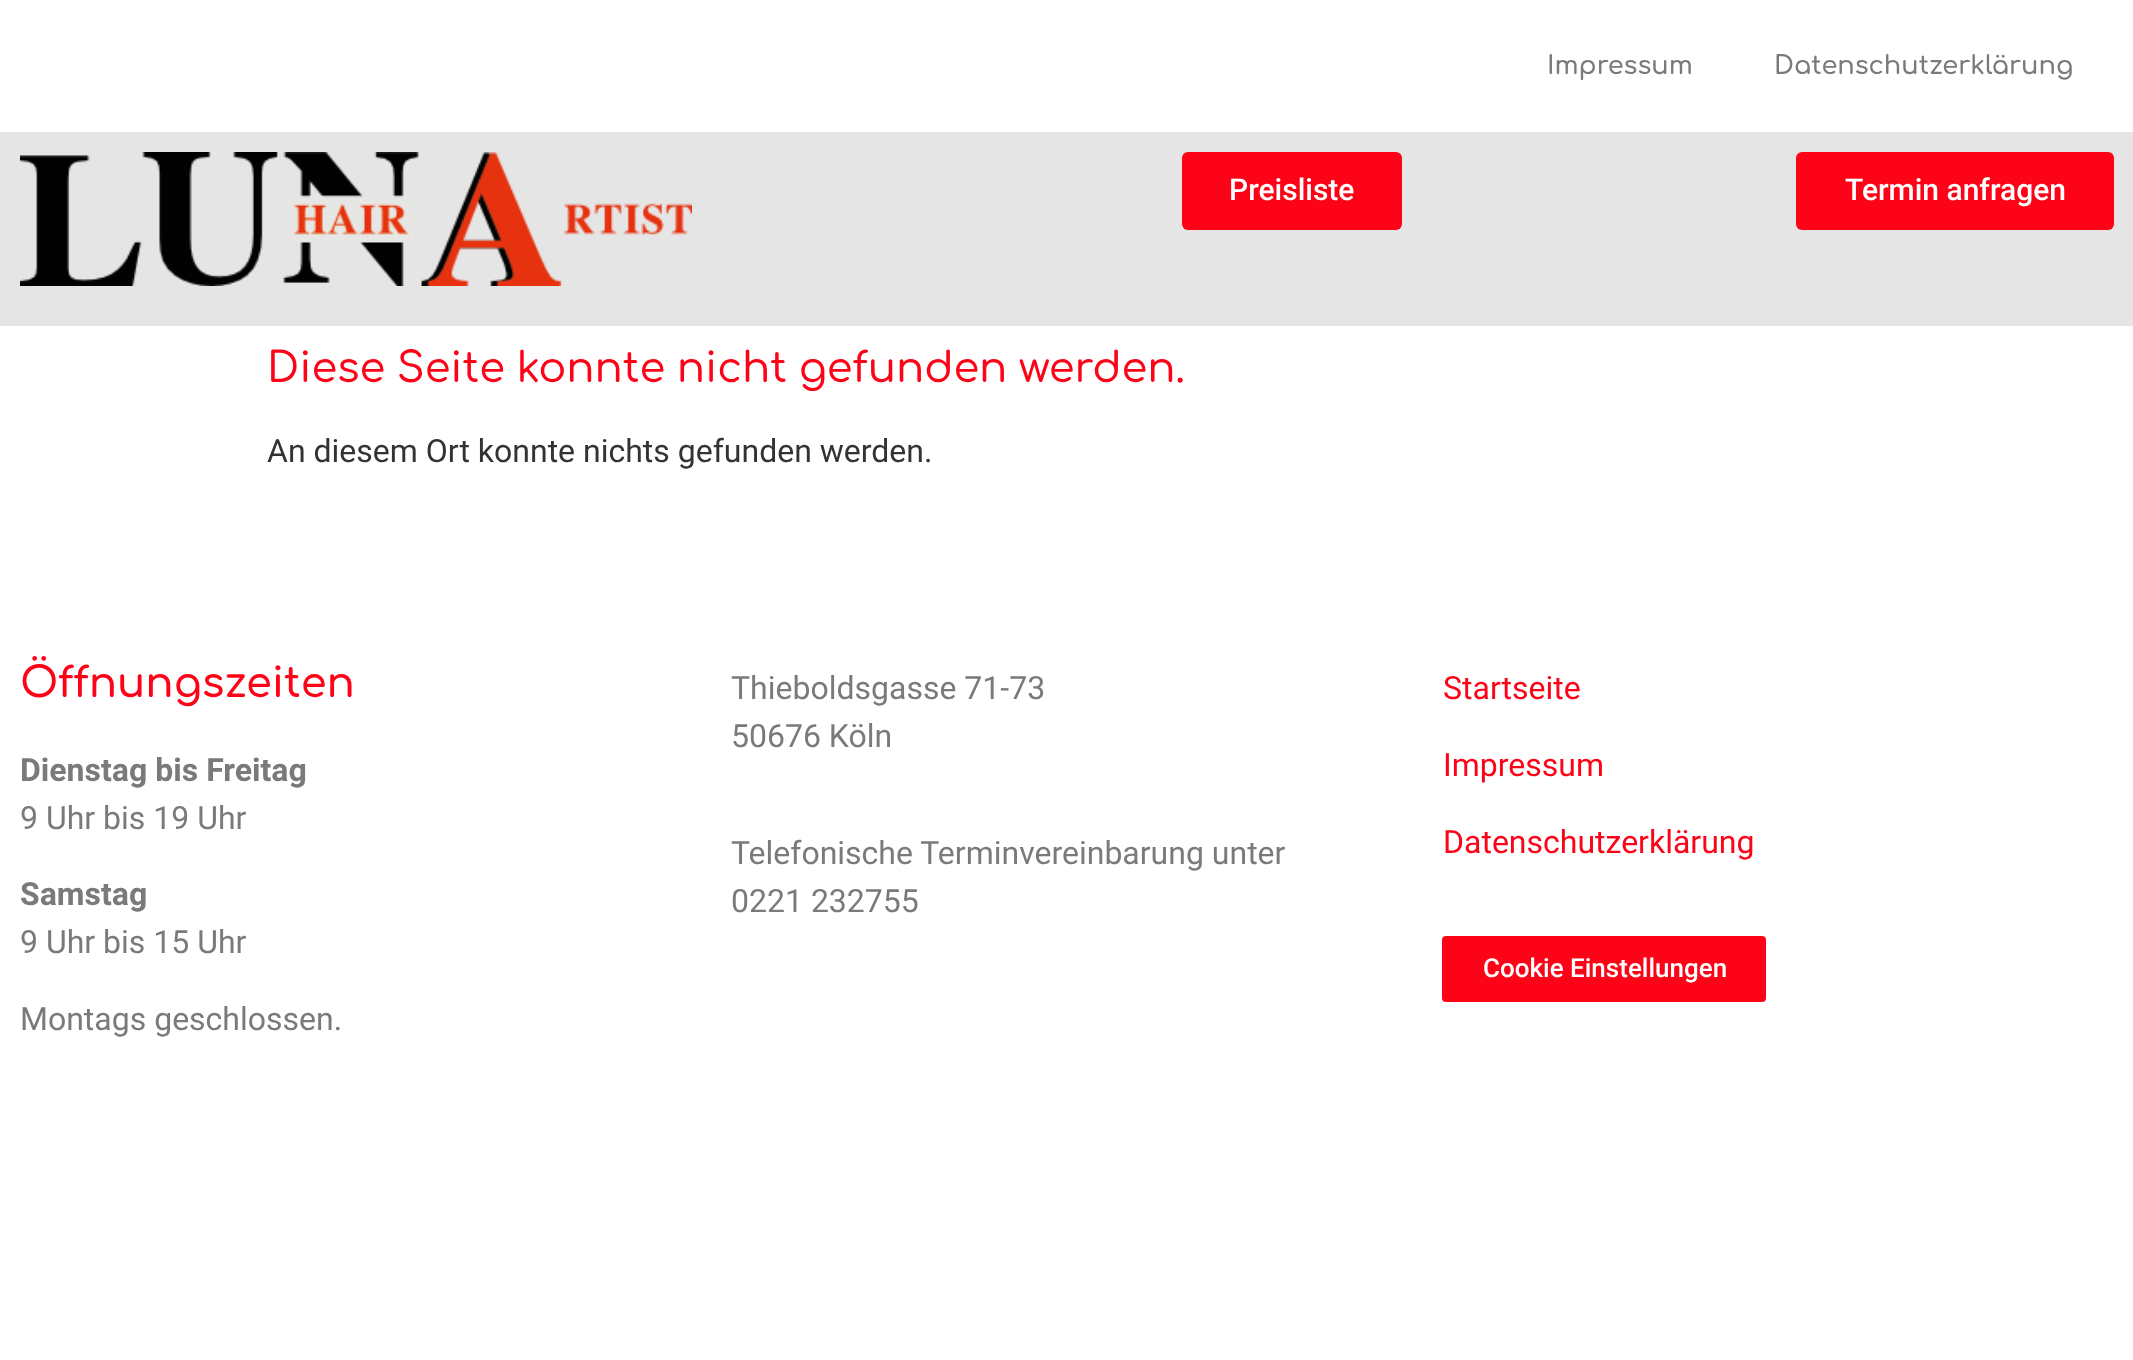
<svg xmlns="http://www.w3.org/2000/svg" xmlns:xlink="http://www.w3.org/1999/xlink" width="2133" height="1360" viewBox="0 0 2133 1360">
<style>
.cls-1{font:600 25.6px Comfortaa;fill:#7a7a7a}
.cls-2{font:500 30px Roboto;fill:#ffffff}
.cls-3{font:500 41.6px Comfortaa;fill:#fc0317}
.cls-4{font:32px Roboto;fill:#333333}
.cls-5{font:600 41.6px Comfortaa;fill:#fc0317}
.cls-6{font:bold 32px Roboto;fill:#7a7a7a}
.cls-7{font:32px Roboto;fill:#7a7a7a}
.cls-8{font:32px Roboto;fill:#fc0317}
.cls-9{font:500 26px Roboto;fill:#ffffff}
</style>
<rect width="100%" height="100%" fill="#ffffff"/>
<rect fill="#e5e5e5" x="0" y="132" width="2133" height="194"/>
<image xlink:href="image0.png" x="20" y="152" width="672" height="134"/>
<rect fill="#fc0317" x="1182" y="152" width="220" height="78" rx="6"/>
<rect fill="#fc0317" x="1796" y="152" width="318" height="78" rx="6"/>
<rect fill="#fc0317" x="1442" y="936" width="324" height="66" rx="4"/>
<text class="cls-1" x="1547" y="74">Impressum</text>
<text class="cls-1" x="1774" y="74">Datenschutzerklärung</text>
<text class="cls-2" x="1229" y="200">Preisliste</text>
<text class="cls-2" x="1845" y="200">Termin anfragen</text>
<text class="cls-3" x="267" y="382" word-spacing="-0.5">Diese Seite konnte nicht gefunden werden.</text>
<text class="cls-4" x="267" y="462">An diesem Ort konnte nichts gefunden werden.</text>
<text class="cls-5" x="20" y="697">Öffnungszeiten</text>
<text class="cls-6" x="20" y="781">Dienstag bis Freitag</text>
<text class="cls-7" x="20" y="829">9 Uhr bis 19 Uhr</text>
<text class="cls-6" x="20" y="905">Samstag</text>
<text class="cls-7" x="20" y="953">9 Uhr bis 15 Uhr</text>
<text class="cls-7" x="20" y="1030">Montags geschlossen.</text>
<text class="cls-7"><tspan x="731" y="699">Thieboldsgasse 71-73</tspan><tspan x="731" y="747">50676 Köln</tspan></text>
<text class="cls-7"><tspan x="731" y="864">Telefonische Terminvereinbarung unter</tspan><tspan x="731" y="912">0221 232755</tspan></text>
<text class="cls-8" x="1443" y="699">Startseite</text>
<text class="cls-8" x="1443" y="776">Impressum</text>
<text class="cls-8" x="1443" y="853">Datenschutzerklärung</text>
<text class="cls-9" x="1483" y="977">Cookie Einstellungen</text>
</svg>
